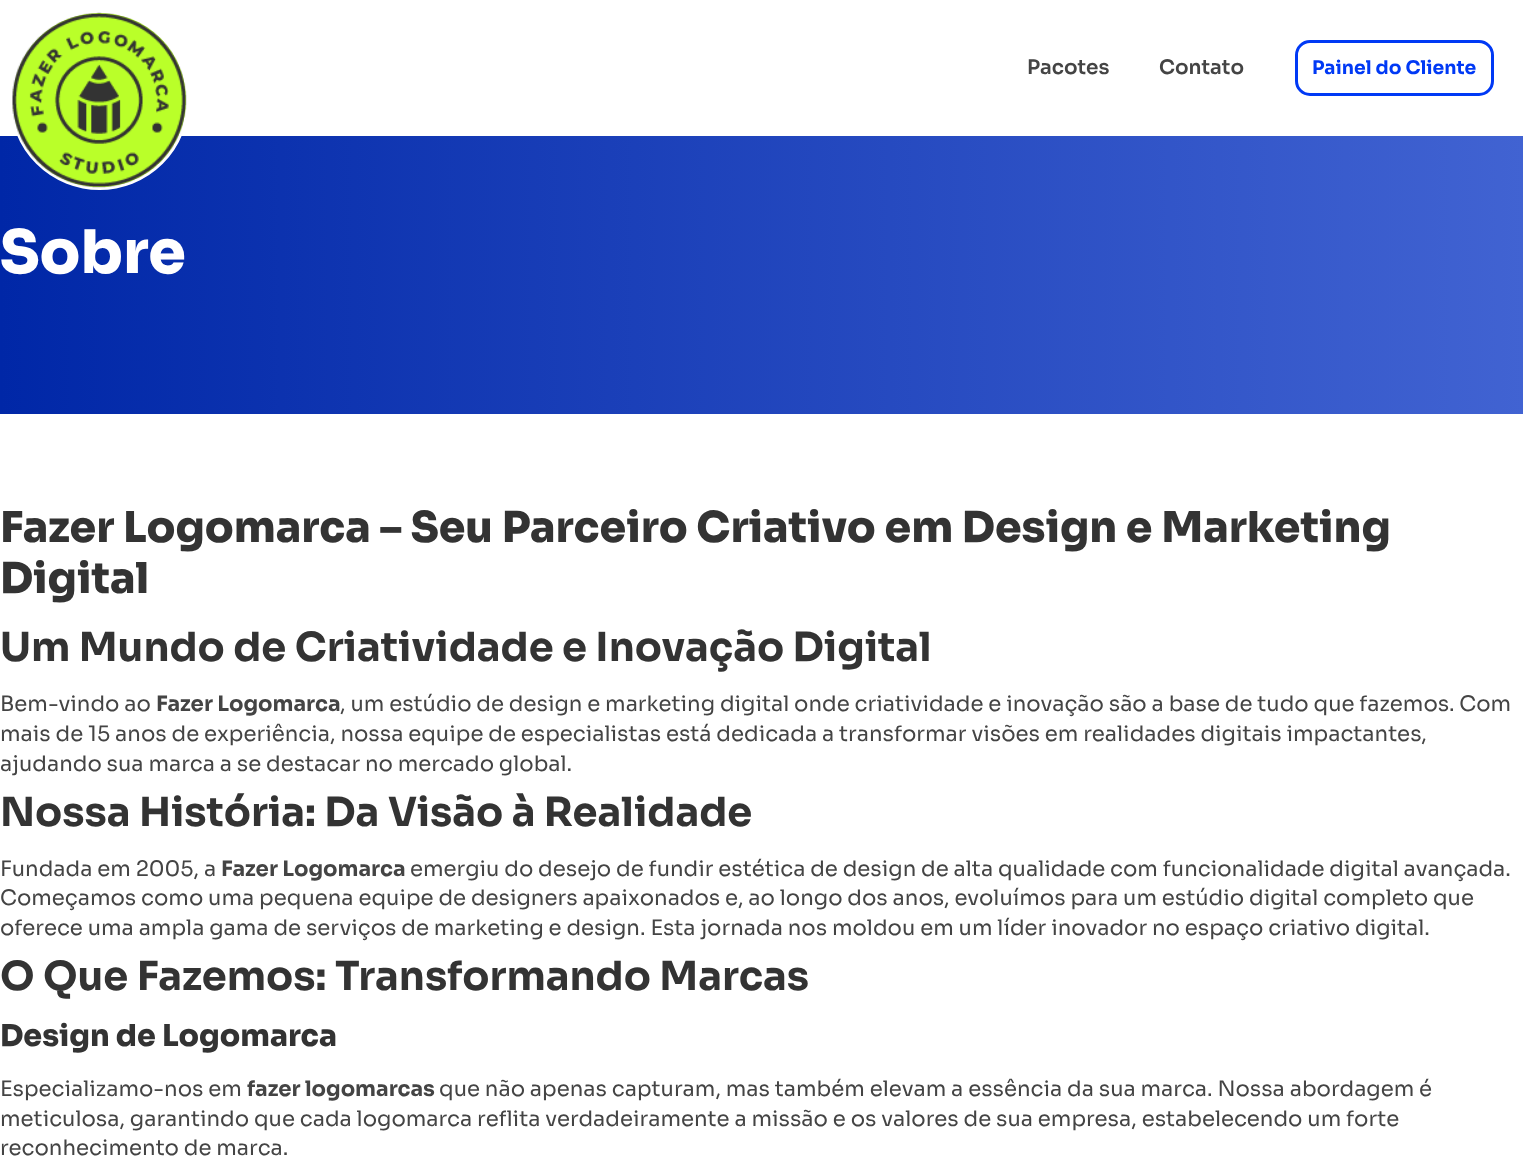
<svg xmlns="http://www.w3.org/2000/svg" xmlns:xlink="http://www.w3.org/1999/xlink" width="1523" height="1157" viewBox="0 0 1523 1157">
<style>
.cls-1{font:600 20px Sora;fill:#444444}
.cls-2{font:bold 18.75px Sora;fill:#0039f5}
.cls-3{font:800 60px Sora;fill:#ffffff}
.cls-4{font:800 42.5px Sora;fill:#333333}
.cls-5{font:bold 40px Sora;fill:#333333}
.cls-6{font:21.25px Sora;fill:#444444}
.cls-7{font:bold 21.25px Sora;fill:#444444}
.cls-8{font:800 30px Sora;fill:#333333}
</style>
<defs>
<linearGradient id="g1" gradientUnits="userSpaceOnUse" x1="0" y1="275" x2="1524" y2="275"><stop offset="0" stop-color="#0027a7"/><stop offset="1" stop-color="#4163d2"/></linearGradient>
</defs>
<rect width="100%" height="100%" fill="#ffffff"/>
<rect fill="url(#g1)" x="0" y="136" width="1523" height="278"/>
<rect fill="#baff29" stroke="#ffffff" stroke-width="3" x="11.5" y="11.5" width="176" height="177" rx="88"/>
<image xlink:href="image0.png" x="12" y="12" width="175" height="176"/>
<rect fill="none" stroke="#0039f5" stroke-width="3" x="1296.5" y="41.5" width="196" height="53" rx="13.5"/>
<text class="cls-1" x="1027" y="74">Pacotes</text>
<text class="cls-1" x="1159" y="74">Contato</text>
<text class="cls-2" x="1312" y="74">Painel do Cliente</text>
<text class="cls-3" x="0" y="273">Sobre</text>
<text class="cls-4"><tspan x="0" y="542">Fazer Logomarca – Seu Parceiro Criativo em Design e Marketing</tspan><tspan x="0" y="593">Digital</tspan></text>
<text class="cls-5" x="0" y="661">Um Mundo de Criatividade e Inovação Digital</text>
<text class="cls-6" x="0" y="711">Bem-vindo ao</text>
<text class="cls-7" x="156" y="711">Fazer Logomarca</text>
<text class="cls-6" x="340" y="711">, um estúdio de design e marketing digital onde criatividade e inovação são a base de tudo que fazemos. Com</text>
<text class="cls-6"><tspan x="0" y="741">mais de 15 anos de experiência, nossa equipe de especialistas está dedicada a transformar visões em realidades digitais impactantes,</tspan><tspan x="0" y="771">ajudando sua marca a se destacar no mercado global.</tspan></text>
<text class="cls-5" x="0" y="826">Nossa História: Da Visão à Realidade</text>
<text class="cls-6" x="0" y="876">Fundada em 2005, a</text>
<text class="cls-7" x="221" y="876">Fazer Logomarca</text>
<text class="cls-6" x="410" y="876">emergiu do desejo de fundir estética de design de alta qualidade com funcionalidade digital avançada.</text>
<text class="cls-6"><tspan x="0" y="905">Começamos como uma pequena equipe de designers apaixonados e, ao longo dos anos, evoluímos para um estúdio digital completo que</tspan><tspan x="0" y="935">oferece uma ampla gama de serviços de marketing e design. Esta jornada nos moldou em um líder inovador no espaço criativo digital.</tspan></text>
<text class="cls-5" x="0" y="990">O Que Fazemos: Transformando Marcas</text>
<text class="cls-8" x="0" y="1046">Design de Logomarca</text>
<text class="cls-6" x="0" y="1096">Especializamo-nos em</text>
<text class="cls-7" x="247" y="1096">fazer logomarcas</text>
<text class="cls-6" x="439" y="1096">que não apenas capturam, mas também elevam a essência da sua marca. Nossa abordagem é</text>
<text class="cls-6"><tspan x="0" y="1126">meticulosa, garantindo que cada logomarca reflita verdadeiramente a missão e os valores de sua empresa, estabelecendo um forte</tspan><tspan x="0" y="1155">reconhecimento de marca.</tspan></text>
</svg>
